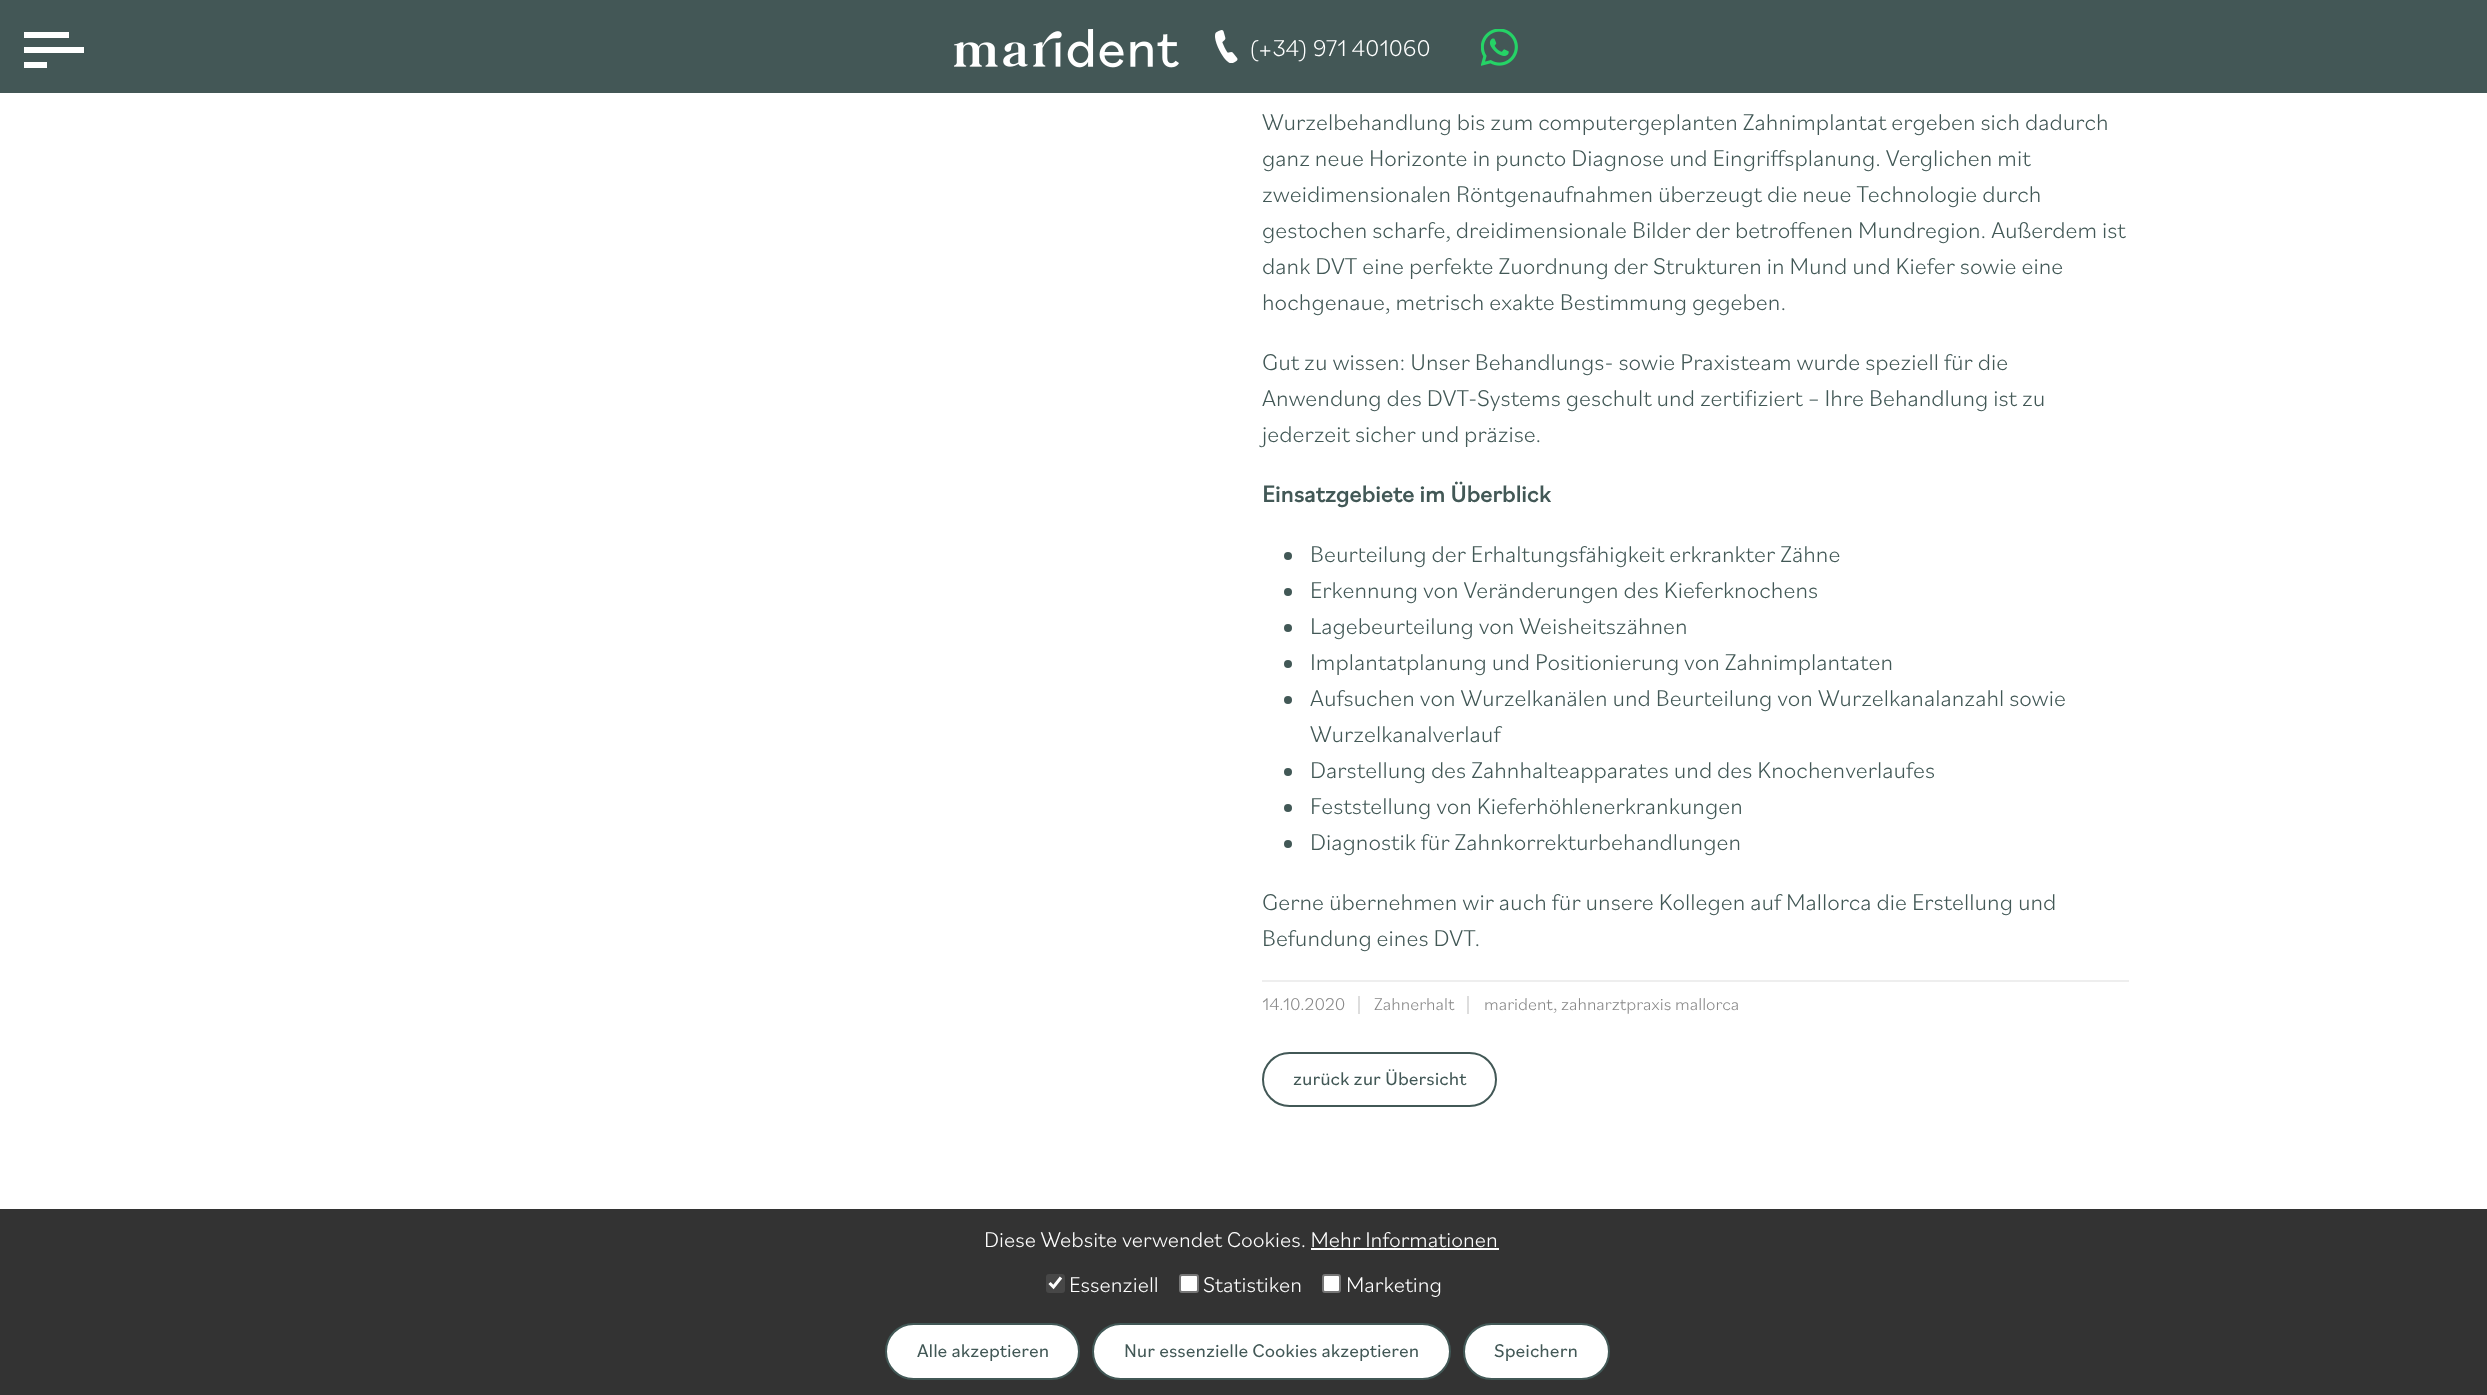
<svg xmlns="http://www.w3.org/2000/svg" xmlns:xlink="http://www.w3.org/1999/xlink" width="2487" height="1395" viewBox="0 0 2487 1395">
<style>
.cls-1{font:300 24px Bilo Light;fill:#ffffff}
.cls-2{font:300 24px Bilo Light;fill:#425856}
.cls-3{font:bold 24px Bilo;fill:#425856}
.cls-4{font:300 18px Bilo Light;fill:#888888}
.cls-5{font:19.25px Bilo;fill:#425856}
.cls-6{font:300 22.5px Bilo Light;fill:#ffffff}
</style>
<rect width="100%" height="100%" fill="#ffffff"/>
<rect fill="#435756" x="0" y="0" width="2487" height="93"/>
<rect fill="#ffffff" x="24" y="47" width="60" height="6"/>
<rect fill="#ffffff" x="24" y="32" width="45" height="6"/>
<rect fill="#ffffff" x="24" y="62" width="23" height="6"/>
<image xlink:href="image0.png" x="954" y="29" width="225" height="39"/>
<image xlink:href="image1.png" x="1215" y="30" width="23" height="33"/>
<image xlink:href="image2.png" x="1481" y="29" width="37" height="37"/>
<circle fill="#425856" cx="1288" cy="556" r="4"/>
<circle fill="#425856" cx="1288" cy="592" r="4"/>
<circle fill="#425856" cx="1288" cy="628" r="4"/>
<circle fill="#425856" cx="1288" cy="664" r="4"/>
<circle fill="#425856" cx="1288" cy="700" r="4"/>
<circle fill="#425856" cx="1288" cy="772" r="4"/>
<circle fill="#425856" cx="1288" cy="808" r="4"/>
<circle fill="#425856" cx="1288" cy="844" r="4"/>
<rect fill="#eeeeee" x="1262" y="980" width="867" height="2"/>
<rect fill="#dddddd" x="1358" y="996" width="2" height="18"/>
<rect fill="#dddddd" x="1467" y="996" width="2" height="18"/>
<rect fill="none" stroke="#425856" stroke-width="2" x="1263" y="1053" width="233" height="53" rx="26.5"/>
<rect fill="#333333" x="0" y="1209" width="2487" height="186"/>
<rect fill="#ffffff" x="1311" y="1248" width="188" height="2"/>
<rect fill="#474747" x="1046" y="1274" width="19" height="19" rx="3"/>
<path fill="none" stroke="#ffffff" stroke-width="3.1" d="M1049.5 1283L1053.5 1287L1061 1277.5"/>
<rect fill="#ffffff" stroke="#767676" stroke-width="2" x="1180" y="1275" width="18" height="17" rx="2"/>
<rect fill="#ffffff" stroke="#767676" stroke-width="2" x="1323" y="1275" width="17" height="17" rx="2"/>
<rect fill="#ffffff" stroke="#425856" stroke-width="2" x="886" y="1324" width="193" height="55" rx="27.5"/>
<rect fill="#ffffff" stroke="#425856" stroke-width="2" x="1093" y="1324" width="357" height="55" rx="27.5"/>
<rect fill="#ffffff" stroke="#425856" stroke-width="2" x="1464" y="1324" width="145" height="55" rx="27.5"/>
<text class="cls-1" x="1249" y="56">(+34) 971 401060</text>
<text class="cls-2"><tspan x="1262" y="130">Wurzelbehandlung bis zum computergeplanten Zahnimplantat ergeben sich dadurch</tspan><tspan x="1262" y="166">ganz neue Horizonte in puncto Diagnose und Eingriffsplanung. Verglichen mit</tspan><tspan x="1262" y="202">zweidimensionalen Röntgenaufnahmen überzeugt die neue Technologie durch</tspan><tspan x="1262" y="238">gestochen scharfe, dreidimensionale Bilder der betroffenen Mundregion. Außerdem ist</tspan><tspan x="1262" y="274">dank DVT eine perfekte Zuordnung der Strukturen in Mund und Kiefer sowie eine</tspan><tspan x="1262" y="310">hochgenaue, metrisch exakte Bestimmung gegeben.</tspan></text>
<text class="cls-2"><tspan x="1262" y="370">Gut zu wissen: Unser Behandlungs- sowie Praxisteam wurde speziell für die</tspan><tspan x="1262" y="406">Anwendung des DVT-Systems geschult und zertifiziert – Ihre Behandlung ist zu</tspan><tspan x="1262" y="442">jederzeit sicher und präzise.</tspan></text>
<text class="cls-3" x="1262" y="502">Einsatzgebiete im Überblick</text>
<text class="cls-2"><tspan x="1310" y="562">Beurteilung der Erhaltungsfähigkeit erkrankter Zähne</tspan><tspan x="1310" y="598">Erkennung von Veränderungen des Kieferknochens</tspan><tspan x="1310" y="634">Lagebeurteilung von Weisheitszähnen</tspan><tspan x="1310" y="670">Implantatplanung und Positionierung von Zahnimplantaten</tspan><tspan x="1310" y="706">Aufsuchen von Wurzelkanälen und Beurteilung von Wurzelkanalanzahl sowie</tspan><tspan x="1310" y="742">Wurzelkanalverlauf</tspan><tspan x="1310" y="778">Darstellung des Zahnhalteapparates und des Knochenverlaufes</tspan><tspan x="1310" y="814">Feststellung von Kieferhöhlenerkrankungen</tspan><tspan x="1310" y="850">Diagnostik für Zahnkorrekturbehandlungen</tspan></text>
<text class="cls-2"><tspan x="1262" y="910">Gerne übernehmen wir auch für unsere Kollegen auf Mallorca die Erstellung und</tspan><tspan x="1262" y="946">Befundung eines DVT.</tspan></text>
<text class="cls-4" x="1262" y="1010">14.10.2020</text>
<text class="cls-4" x="1374" y="1010">Zahnerhalt</text>
<text class="cls-4" x="1484" y="1010">marident, zahnarztpraxis mallorca</text>
<text class="cls-5" x="1293" y="1085">zurück zur Übersicht</text>
<text class="cls-6" x="984" y="1247">Diese Website verwendet Cookies. Mehr Informationen</text>
<text class="cls-6" x="1069" y="1292">Essenziell</text>
<text class="cls-6" x="1203" y="1292">Statistiken</text>
<text class="cls-6" x="1346" y="1292">Marketing</text>
<text class="cls-5" x="917" y="1357">Alle akzeptieren</text>
<text class="cls-5" x="1124" y="1357">Nur essenzielle Cookies akzeptieren</text>
<text class="cls-5" x="1494" y="1357">Speichern</text>
</svg>
